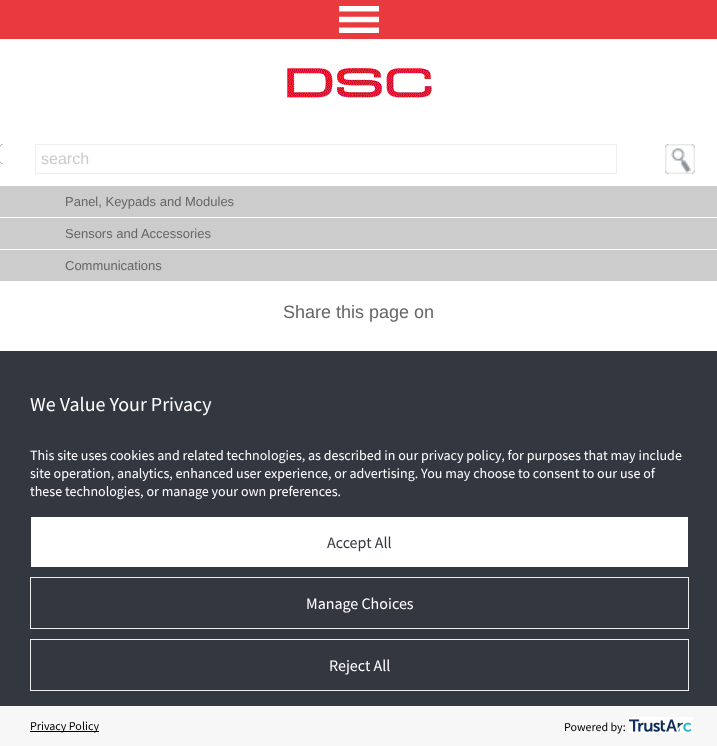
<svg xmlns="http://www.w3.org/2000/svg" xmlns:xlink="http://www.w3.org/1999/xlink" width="717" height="746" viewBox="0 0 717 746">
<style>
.cls-1{font:16px Liberation Sans;fill:#cccccc}
.cls-2{font:13px Liberation Sans;fill:#666666}
.cls-3{font:18px Liberation Sans;fill:#666666}
.cls-4{font:20px Source Sans Pro;fill:#ffffff}
.cls-5{font:14px Source Sans Pro;fill:#ffffff}
.cls-6{font:16px Source Sans Pro;fill:#333740}
.cls-7{font:16px Source Sans Pro;fill:#ffffff}
.cls-8{font:12px Source Sans Pro;fill:#000000}
</style>
<rect width="100%" height="100%" fill="#ffffff"/>
<rect fill="#e93b3f" x="0" y="0" width="717" height="39"/>
<image xlink:href="image0.png" x="339" y="6" width="40" height="27"/>
<image xlink:href="image1.png" x="287" y="68" width="145" height="30"/>
<image xlink:href="image2.png" x="0" y="144" width="35" height="20"/>
<rect fill="none" stroke="#eeeeee" x="35.5" y="144.5" width="581" height="29"/>
<image xlink:href="image3.png" x="665" y="144" width="30" height="30"/>
<rect fill="#cccccc" x="0" y="186" width="717" height="31"/>
<rect fill="#cccccc" x="0" y="218" width="717" height="31"/>
<rect fill="#cccccc" x="0" y="250" width="717" height="31"/>
<rect fill="#333740" x="0" y="351" width="717" height="355"/>
<rect fill="#ffffff" x="31" y="517" width="657" height="50"/>
<rect fill="none" stroke="#eeeeee" x="30.5" y="577.5" width="658" height="51"/>
<rect fill="none" stroke="#eeeeee" x="30.5" y="639.5" width="658" height="51"/>
<rect fill="#f7f7f7" x="0" y="706" width="717" height="40"/>
<rect fill="#000000" x="30" y="731" width="69" height="1"/>
<image xlink:href="image4.png" x="629" y="717" width="64" height="16"/>
<text class="cls-1" x="41" y="164">search</text>
<text class="cls-2" x="65" y="206">Panel, Keypads and Modules</text>
<text class="cls-2" x="65" y="238">Sensors and Accessories</text>
<text class="cls-2" x="65" y="270">Communications</text>
<text class="cls-3" x="283" y="318">Share this page on</text>
<text class="cls-4" x="30" y="411">We Value Your Privacy</text>
<text class="cls-5"><tspan x="30" y="460">This site uses cookies and related technologies, as described in our privacy policy, for purposes that may include</tspan><tspan x="30" y="478">site operation, analytics, enhanced user experience, or advertising. You may choose to consent to our use of</tspan><tspan x="30" y="496">these technologies, or manage your own preferences.</tspan></text>
<text class="cls-6" x="327" y="548">Accept All</text>
<text class="cls-7" x="306" y="609">Manage Choices</text>
<text class="cls-7" x="329" y="671">Reject All</text>
<text class="cls-8" x="30" y="730">Privacy Policy</text>
<text class="cls-8" x="564" y="731">Powered by:</text>
</svg>
